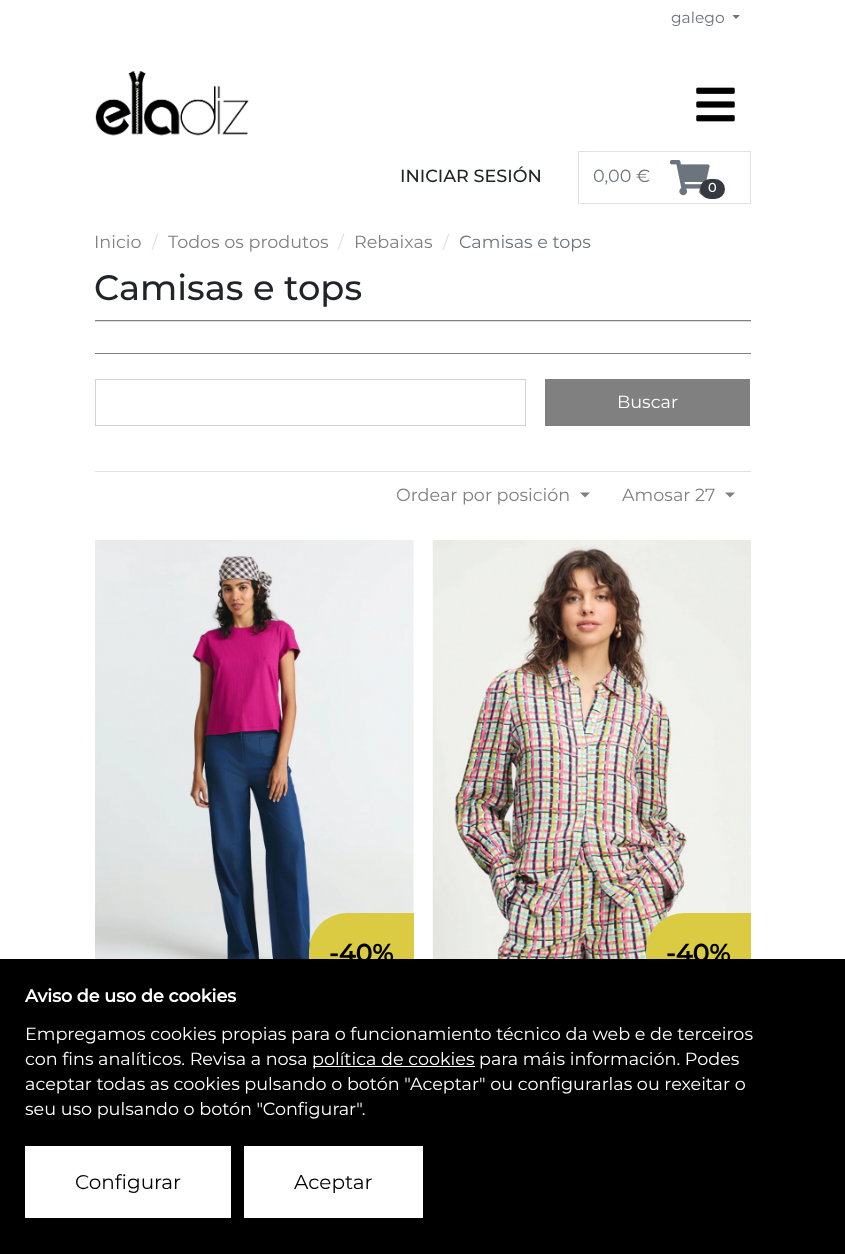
(async () => {
    const canvas = document.querySelector("canvas");
    canvas.width = 845;
    canvas.height = 1254;
    const context = canvas.getContext("2d");
    context.miterLimit = 4;
    context.fontKerning = "normal";
    function write(s, x, y, font, color) {
        context.font = font;
        context.fillStyle = color;
        context.fillText(s, x, y);
    }
    function block(x, y, w, h, color) {
        context.fillStyle = color;
        context.fillRect(x, y, w, h);
    }
    function card(x, y, w, h, r, color) {
        context.fillStyle = color;
        context.beginPath();
        context.roundRect(x, y, w, h, r);
        context.fill();
    }
    async function photo(src, x, y, w, h) {
        const img = new Image();
        img.src = src;
        await img.decode();
        context.drawImage(img, x, y, w, h);
    }

    block(0, 0, 845, 1254, "rgb(255, 255, 255)");
    write("galego", 671, 23, "15.5px Montserrat", "rgb(108, 117, 125)");
    context.beginPath();
    context.moveTo(732.5, 15);
    context.lineTo(740, 15);
    context.lineTo(736, 19);
    context.closePath();
    context.fill();
    await photo("media/1.png", 95, 70, 154, 66);
    await photo("media/2.png", 696, 87, 39, 35);
    write("INICIAR SESIÓN", 400, 182, "500 17.6px Montserrat", "rgb(33, 37, 41)");
    context.strokeStyle = "rgb(222, 226, 230)";
    context.strokeRect(578.5, 151.5, 172, 52);
    write("0,00 €", 593, 182, "17.6px Montserrat", "rgb(108, 117, 125)");
    await photo("media/3.png", 670, 160, 40, 36);
    card(700, 179, 25, 20, 10, "rgb(52, 58, 64)");
    write("0", 708, 192, "500 13px Montserrat", "rgb(255, 255, 255)");
    write("Inicio", 94, 248, "17.6px Montserrat", "rgb(128, 128, 128)");
    write("/", 152, 248, "17.6px Montserrat", "rgb(222, 226, 230)");
    write("Todos os produtos", 168, 248, "17.6px Montserrat", "rgb(128, 128, 128)");
    write("/", 338, 248, "17.6px Montserrat", "rgb(222, 226, 230)");
    write("Rebaixas", 354, 248, "17.6px Montserrat", "rgb(128, 128, 128)");
    write("/", 443, 248, "17.6px Montserrat", "rgb(222, 226, 230)");
    write("Camisas e tops", 459, 248, "17.6px Montserrat", "rgb(108, 117, 125)");
    write("Camisas e tops", 94, 300, "500 35.25px Montserrat", "rgb(33, 37, 41)");
    block(95, 320, 656, 1, "rgb(128, 128, 128)");
    block(95, 321, 656, 1, "rgb(223, 223, 223)");
    block(95, 353, 656, 1, "rgb(128, 128, 128)");
    block(95, 471, 656, 1, "rgb(223, 223, 223)");
    context.strokeStyle = "rgb(206, 212, 218)";
    context.strokeRect(95.5, 379.5, 430, 46);
    block(545, 379, 205, 47, "rgb(128, 128, 128)");
    write("Buscar", 617, 408, "17.6px Montserrat", "rgb(255, 255, 255)");
    write("Ordear por posición", 396, 501, "17.6px Montserrat", "rgb(128, 128, 128)");
    context.beginPath();
    context.moveTo(580, 492.5);
    context.lineTo(590, 492.5);
    context.lineTo(585, 497.5);
    context.closePath();
    context.fill();
    write("Amosar 27", 622, 501, "17.6px Montserrat", "rgb(128, 128, 128)");
    context.beginPath();
    context.moveTo(725, 492.5);
    context.lineTo(735, 492.5);
    context.lineTo(730, 497.5);
    context.closePath();
    context.fill();
    await photo("media/4.png", 95, 540, 319, 419);
    context.fillStyle = "rgb(219, 203, 66)";
    context.beginPath();
    context.roundRect(309, 913, 105, 82, [38, 0, 38, 0]);
    context.fill();
    write("-40%", 329, 962, "bold 25px Montserrat", "rgb(0, 0, 0)");
    await photo("media/5.png", 432, 540, 319, 419);
    context.fillStyle = "rgb(219, 203, 66)";
    context.beginPath();
    context.roundRect(646, 913, 105, 82, [38, 0, 38, 0]);
    context.fill();
    write("-40%", 666, 962, "bold 25px Montserrat", "rgb(0, 0, 0)");
    block(0, 959, 845, 295, "rgb(0, 0, 0)");
    write("Aviso de uso de cookies", 25, 1002, "bold 17.6px Montserrat", "rgb(255, 255, 255)");
    write("Empregamos cookies propias para o funcionamiento técnico da web e de terceiros", 25, 1040, "17.6px Montserrat", "rgb(255, 255, 255)");
    write("con fins analíticos. Revisa a nosa", 25, 1065, "17.6px Montserrat", "rgb(255, 255, 255)");
    block(313, 1066, 162, 1, "rgb(255, 255, 255)");
    write("política de cookies para máis información. Podes", 312, 1065, "17.6px Montserrat", "rgb(255, 255, 255)");
    write("aceptar todas as cookies pulsando o botón \"Aceptar\" ou configurarlas ou rexeitar o", 25, 1090, "17.6px Montserrat", "rgb(255, 255, 255)");
    write("seu uso pulsando o botón \"Configurar\".", 25, 1115, "17.6px Montserrat", "rgb(255, 255, 255)");
    block(25, 1146, 206, 72, "rgb(255, 255, 255)");
    write("Configurar", 75, 1189, "20px Montserrat", "rgb(0, 0, 0)");
    block(244, 1146, 179, 72, "rgb(255, 255, 255)");
    write("Aceptar", 294, 1189, "20px Montserrat", "rgb(0, 0, 0)");
})();
